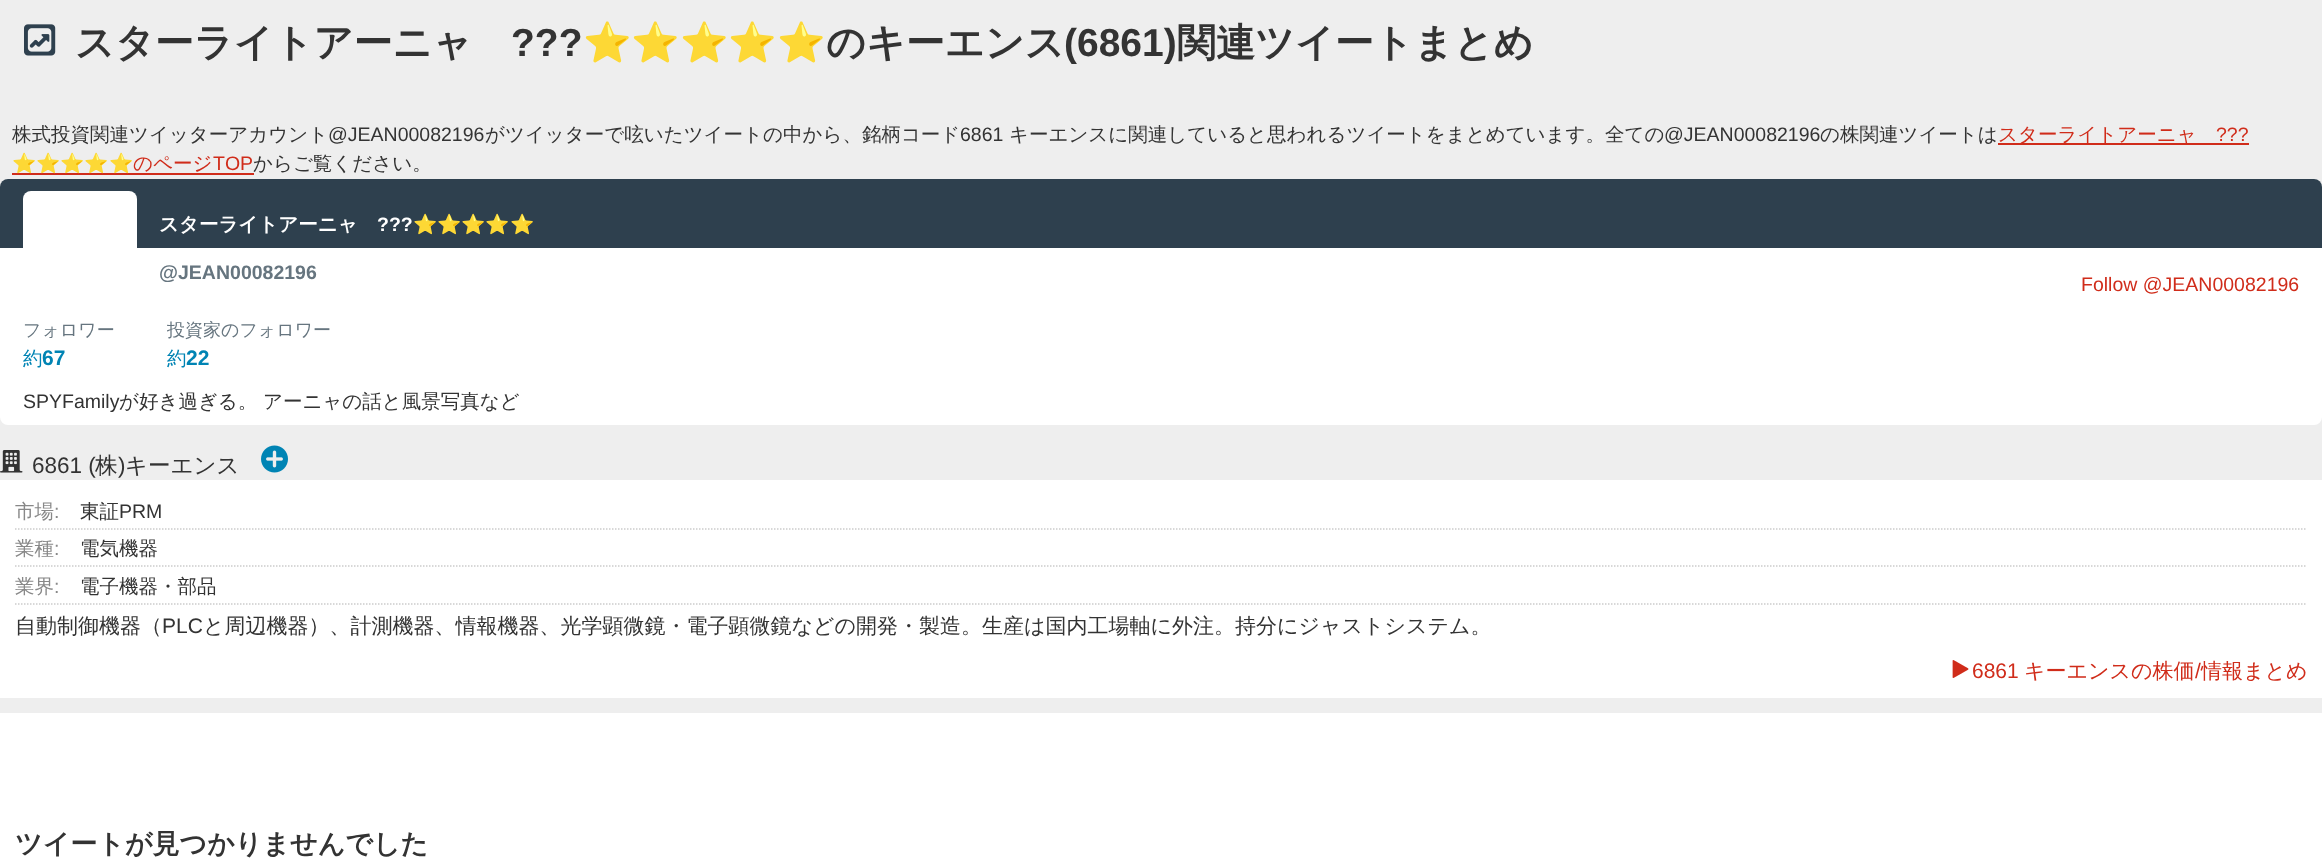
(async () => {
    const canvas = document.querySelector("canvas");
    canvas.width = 2322;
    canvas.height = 868;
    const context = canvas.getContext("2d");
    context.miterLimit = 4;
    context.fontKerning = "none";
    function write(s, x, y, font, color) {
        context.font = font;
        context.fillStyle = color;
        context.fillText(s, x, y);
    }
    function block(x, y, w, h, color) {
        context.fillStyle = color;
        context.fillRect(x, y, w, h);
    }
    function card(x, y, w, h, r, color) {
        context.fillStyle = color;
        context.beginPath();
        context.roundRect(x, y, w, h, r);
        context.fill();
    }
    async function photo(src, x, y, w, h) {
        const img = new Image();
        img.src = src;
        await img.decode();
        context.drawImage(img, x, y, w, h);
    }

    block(0, 0, 2322, 868, "rgb(238, 238, 238)");
    await photo("media/1.png", 24, 24, 32, 32);
    write("スターライトアーニャ", 75, 56, "bold 39px WenQuanYi Zen Hei", "rgb(51, 51, 51)");
    write("???", 511, 56, "bold 39px Liberation Sans", "rgb(51, 51, 51)");
    write("⭐⭐⭐⭐⭐", 583, 56, "bold 39px Noto Color Emoji", "rgb(51, 51, 51)");
    write("のキーエンス", 826, 56, "bold 39px WenQuanYi Zen Hei", "rgb(51, 51, 51)");
    write("(6861)", 1064, 56, "bold 39px Liberation Sans", "rgb(51, 51, 51)");
    write("関連ツイートまとめ", 1177, 56, "bold 39px WenQuanYi Zen Hei", "rgb(51, 51, 51)");
    write("株式投資関連ツイッターアカウント", 12, 141, "500 19.5px WenQuanYi Zen Hei", "rgb(51, 51, 51)");
    write("@JEAN00082196", 328, 141, "19.5px Liberation Sans", "rgb(51, 51, 51)");
    write("がツイッターで呟いたツイートの中から、銘柄コード", 485, 141, "500 19.5px WenQuanYi Zen Hei", "rgb(51, 51, 51)");
    write("6861", 960, 141, "19.5px Liberation Sans", "rgb(51, 51, 51)");
    write("キーエンスに関連していると思われるツイートをまとめています。全ての", 1009, 141, "500 19.5px WenQuanYi Zen Hei", "rgb(51, 51, 51)");
    write("@JEAN00082196", 1664, 141, "19.5px Liberation Sans", "rgb(51, 51, 51)");
    write("の株関連ツイートは", 1820, 141, "500 19.5px WenQuanYi Zen Hei", "rgb(51, 51, 51)");
    block(1998, 143, 251, 2, "rgb(208, 44, 26)");
    write("スターライトアーニャ", 1998, 141, "500 19.5px WenQuanYi Zen Hei", "rgb(208, 44, 26)");
    write("???", 2216, 141, "19.5px Liberation Sans", "rgb(208, 44, 26)");
    block(12, 173, 242, 2, "rgb(208, 44, 26)");
    write("⭐⭐⭐⭐⭐", 12, 170, "19.5px Noto Color Emoji", "rgb(208, 44, 26)");
    write("のページ", 133, 170, "500 19.5px WenQuanYi Zen Hei", "rgb(208, 44, 26)");
    write("TOP", 213, 170, "19.5px Liberation Sans", "rgb(208, 44, 26)");
    write("からご覧ください。", 253, 170, "500 19.5px WenQuanYi Zen Hei", "rgb(51, 51, 51)");
    card(0, 179, 2322, 246, 8, "rgb(255, 255, 255)");
    context.fillStyle = "rgb(46, 64, 78)";
    context.beginPath();
    context.roundRect(0, 179, 2322, 69, [8, 8, 0, 0]);
    context.fill();
    card(23, 191, 114, 114, 8, "rgb(255, 255, 255)");
    write("スターライトアーニャ", 159, 231, "bold 19.5px WenQuanYi Zen Hei", "rgb(255, 255, 255)");
    write("???", 377, 231, "bold 19.5px Liberation Sans", "rgb(255, 255, 255)");
    write("⭐⭐⭐⭐⭐", 413, 231, "bold 19.5px Noto Color Emoji", "rgb(255, 255, 255)");
    write("@JEAN00082196", 159, 279, "bold 19.5px Liberation Sans", "rgb(102, 117, 127)");
    write("Follow @JEAN00082196", 2081, 291, "19.5px Liberation Sans", "rgb(208, 44, 26)");
    write("フォロワー", 23, 336, "500 18px WenQuanYi Zen Hei", "rgb(102, 117, 127)");
    write("約", 23, 365, "500 19.5px WenQuanYi Zen Hei", "rgb(0, 132, 180)");
    write("67", 42, 365, "bold 21px Liberation Sans", "rgb(0, 132, 180)");
    write("投資家のフォロワー", 167, 336, "500 18px WenQuanYi Zen Hei", "rgb(102, 117, 127)");
    write("約", 167, 365, "500 19.5px WenQuanYi Zen Hei", "rgb(0, 132, 180)");
    write("22", 186, 365, "bold 21px Liberation Sans", "rgb(0, 132, 180)");
    write("SPYFamily", 23, 408, "19.5px Liberation Sans", "rgb(51, 51, 51)");
    write("が好き過ぎる。", 119, 408, "500 19.5px WenQuanYi Zen Hei", "rgb(51, 51, 51)");
    write("アーニャの話と風景写真など", 263, 408, "500 19.5px WenQuanYi Zen Hei", "rgb(51, 51, 51)");
    await photo("media/2.png", 0, 450, 23, 23);
    write("6861 (", 32, 473, "22.5px Liberation Sans", "rgb(51, 51, 51)");
    write("株", 95, 473, "500 22.5px WenQuanYi Zen Hei", "rgb(51, 51, 51)");
    write(")", 118, 473, "22.5px Liberation Sans", "rgb(51, 51, 51)");
    write("キーエンス", 125, 473, "500 22.5px WenQuanYi Zen Hei", "rgb(51, 51, 51)");
    await photo("media/3.png", 261, 445, 27, 28);
    block(0, 480, 2322, 218, "rgb(255, 255, 255)");
    context.beginPath();
    context.moveTo(15, 529);
    context.lineTo(2307, 529);
    context.strokeStyle = "rgb(204, 204, 204)";
    context.lineWidth = 1.5;
    context.setLineDash([1.5, 1.5]);
    context.stroke();
    write("市場", 15, 518, "500 19.5px WenQuanYi Zen Hei", "rgb(136, 136, 136)");
    write(":", 54, 518, "19.5px Liberation Sans", "rgb(136, 136, 136)");
    write("東証", 80, 518, "500 19.5px WenQuanYi Zen Hei", "rgb(51, 51, 51)");
    write("PRM", 119, 518, "19.5px Liberation Sans", "rgb(51, 51, 51)");
    context.beginPath();
    context.moveTo(15, 566);
    context.lineTo(2307, 566);
    context.stroke();
    write("業種", 15, 555, "500 19.5px WenQuanYi Zen Hei", "rgb(136, 136, 136)");
    write(":", 54, 555, "19.5px Liberation Sans", "rgb(136, 136, 136)");
    write("電気機器", 80, 555, "500 19.5px WenQuanYi Zen Hei", "rgb(51, 51, 51)");
    context.beginPath();
    context.moveTo(15, 604);
    context.lineTo(2307, 604);
    context.stroke();
    write("業界", 15, 593, "500 19.5px WenQuanYi Zen Hei", "rgb(136, 136, 136)");
    write(":", 54, 593, "19.5px Liberation Sans", "rgb(136, 136, 136)");
    write("電子機器・部品", 80, 593, "500 19.5px WenQuanYi Zen Hei", "rgb(51, 51, 51)");
    write("自動制御機器（", 15, 633, "500 21px WenQuanYi Zen Hei", "rgb(51, 51, 51)");
    write("PLC", 162, 633, "21px Liberation Sans", "rgb(51, 51, 51)");
    write("と周辺機器）、計測機器、情報機器、光学顕微鏡・電子顕微鏡などの開発・製造。生産は国内工場軸に外注。持分にジャストシステム。", 203, 633, "500 21px WenQuanYi Zen Hei", "rgb(51, 51, 51)");
    await photo("media/4.png", 1952, 660, 17, 18);
    write("6861", 1972, 678, "21px Liberation Sans", "rgb(208, 44, 26)");
    write("キーエンスの株価", 2024, 678, "500 21px WenQuanYi Zen Hei", "rgb(208, 44, 26)");
    write("/", 2195, 678, "21px Liberation Sans", "rgb(208, 44, 26)");
    write("情報まとめ", 2201, 678, "500 21px WenQuanYi Zen Hei", "rgb(208, 44, 26)");
    block(0, 713, 2322, 155, "rgb(255, 255, 255)");
    write("ツイートが見つかりませんでした", 15, 853, "bold 27px WenQuanYi Zen Hei", "rgb(51, 51, 51)");
})();
